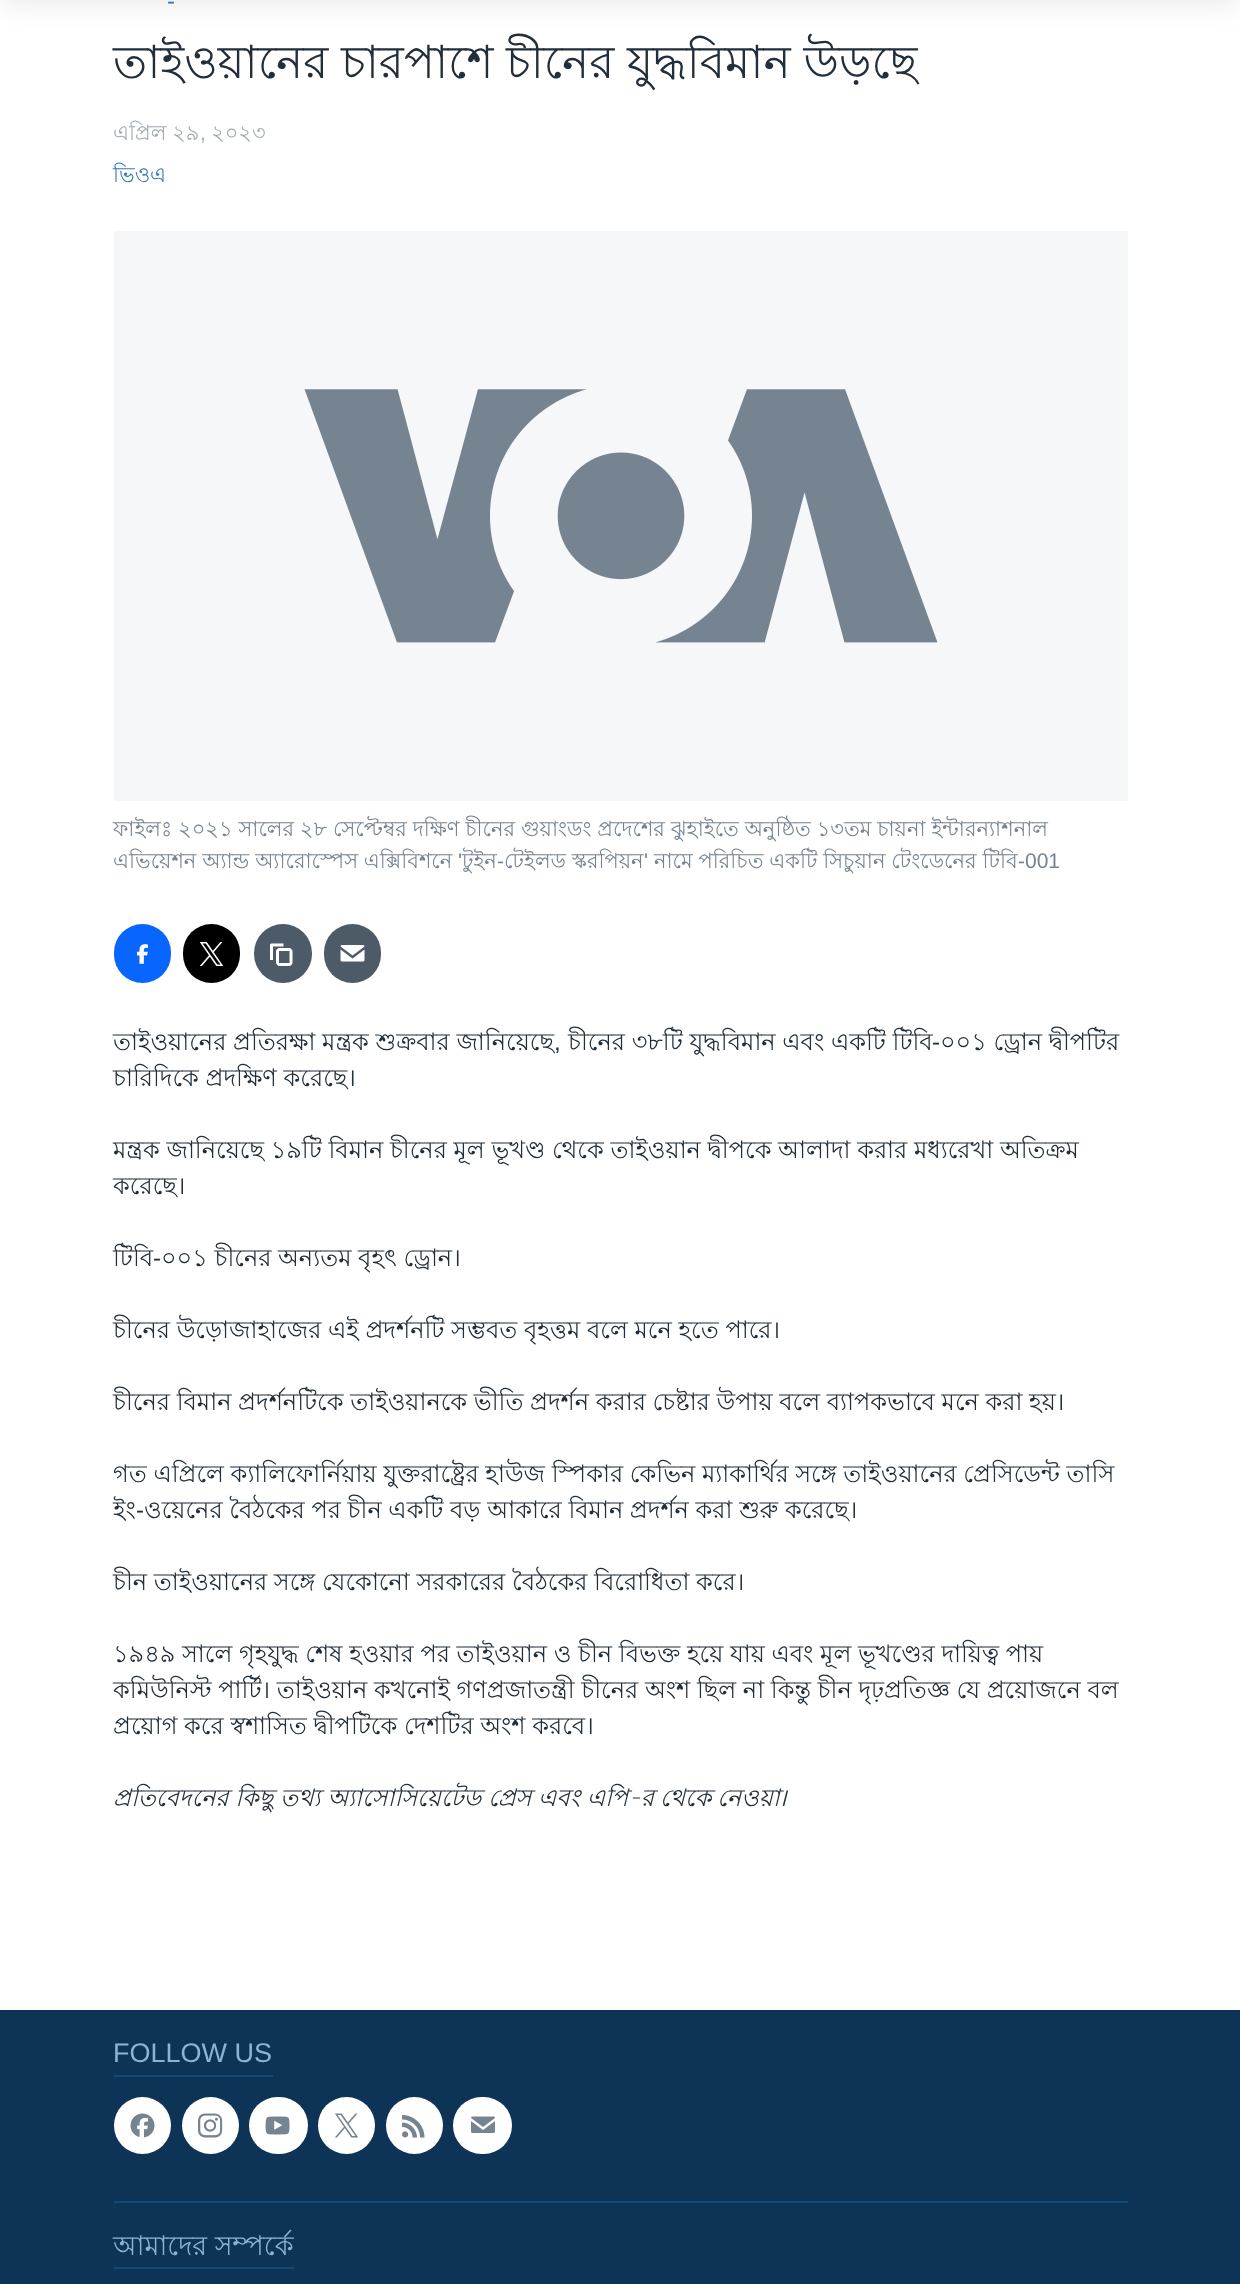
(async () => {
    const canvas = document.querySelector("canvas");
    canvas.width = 1240;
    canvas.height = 2284;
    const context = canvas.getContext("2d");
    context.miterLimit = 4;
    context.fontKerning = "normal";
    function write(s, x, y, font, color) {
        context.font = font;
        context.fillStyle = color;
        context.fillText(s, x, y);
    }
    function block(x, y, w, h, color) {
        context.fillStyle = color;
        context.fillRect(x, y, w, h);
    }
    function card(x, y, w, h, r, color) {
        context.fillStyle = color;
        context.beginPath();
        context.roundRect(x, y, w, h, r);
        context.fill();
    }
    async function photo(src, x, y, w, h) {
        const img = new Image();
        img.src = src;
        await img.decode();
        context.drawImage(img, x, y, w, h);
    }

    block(0, 0, 1240, 2284, "rgb(255, 255, 255)");
    context.fillStyle = "rgba(0, 0, 0, 0.1)";
    context.filter = "blur(15px)";
    context.beginPath();
    context.rect(0, -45, 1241, 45);
    context.fill();
    context.filter = "none";
    write("-", 167, 9, "24px Liberation Sans", "rgb(58, 121, 183)");
    write("তাইওয়ানের চারপাশে চীনের যুদ্ধবিমান উড়ছে", 113, 78, "45.6px Lohit Bengali", "rgb(34, 47, 58)");
    write("এপ্রিল ২৯", 113, 140, "21px Lohit Bengali", "rgb(161, 170, 180)");
    write(",", 200, 140, "21px Liberation Sans", "rgb(161, 170, 180)");
    write("২০২৩", 211, 140, "21px Lohit Bengali", "rgb(161, 170, 180)");
    write("ভিওএ", 113, 182, "21px Lohit Bengali", "rgb(58, 121, 183)");
    block(114, 231, 1014, 570, "rgb(246, 247, 248)");
    await photo("media/1.png", 304, 389, 634, 254);
    write("ফাইলঃ ২০২১ সালের ২৮ সেপ্টেম্বর দক্ষিণ চীনের গুয়াংডং প্রদেশের ঝুহাইতে অনুষ্ঠিত ১৩তম চায়না ইন্টারন্যাশনাল", 113, 836, "21px Lohit Bengali", "rgb(118, 132, 146)");
    write("এভিয়েশন অ্যান্ড অ্যারোস্পেস এক্সিবিশনে", 113, 868, "21px Lohit Bengali", "rgb(118, 132, 146)");
    write("'", 458, 868, "21px Liberation Sans", "rgb(118, 132, 146)");
    write("টুইন", 462, 868, "21px Lohit Bengali", "rgb(118, 132, 146)");
    write("টেইলড স্করপিয়ন", 504, 868, "21px Lohit Bengali", "rgb(118, 132, 146)");
    write("নামে পরিচিত একটি সিচুয়ান টেংডেনের টিবি", 654, 868, "21px Lohit Bengali", "rgb(118, 132, 146)");
    write("-", 497, 868, "21px Liberation Sans", "rgb(118, 132, 146)");
    write("'", 644, 868, "21px Liberation Sans", "rgb(118, 132, 146)");
    write("-001", 1018, 868, "21px Liberation Sans", "rgb(118, 132, 146)");
    card(114, 924, 57, 59, 28.5, "rgb(8, 102, 255)");
    await photo("media/2.png", 137, 944, 11, 20);
    card(183, 924, 57, 59, 28.5, "rgb(0, 0, 0)");
    await photo("media/3.png", 199, 942, 25, 24);
    card(254, 924, 58, 59, 29, "rgb(77, 90, 103)");
    await photo("media/4.png", 270, 943, 23, 23);
    card(324, 924, 57, 59, 28.5, "rgb(77, 90, 103)");
    await photo("media/5.png", 340, 945, 25, 17);
    write("তাইওয়ানের প্রতিরক্ষা মন্ত্রক শুক্রবার জানিয়েছে", 113, 1050, "24px Lohit Bengali", "rgb(34, 47, 58)");
    write(",", 554, 1050, "24px Liberation Sans", "rgb(34, 47, 58)");
    write("চীনের ৩৮টি যুদ্ধবিমান এবং একটি টিবি", 568, 1050, "24px Lohit Bengali", "rgb(34, 47, 58)");
    write("-", 932, 1050, "24px Liberation Sans", "rgb(34, 47, 58)");
    write("০০১ ড্রোন দ্বীপটির", 940, 1050, "24px Lohit Bengali", "rgb(34, 47, 58)");
    write("চারিদিকে প্রদক্ষিণ করেছে।", 113, 1086, "24px Lohit Bengali", "rgb(34, 47, 58)");
    write("মন্ত্রক জানিয়েছে ১৯টি বিমান চীনের মূল ভূখণ্ড থেকে তাইওয়ান দ্বীপকে আলাদা করার মধ্যরেখা অতিক্রম", 113, 1158, "24px Lohit Bengali", "rgb(34, 47, 58)");
    write("করেছে।", 113, 1194, "24px Lohit Bengali", "rgb(34, 47, 58)");
    write("টিবি", 113, 1266, "24px Lohit Bengali", "rgb(34, 47, 58)");
    write("-", 153, 1266, "24px Liberation Sans", "rgb(34, 47, 58)");
    write("০০১ চীনের অন্যতম বৃহৎ ড্রোন।", 161, 1266, "24px Lohit Bengali", "rgb(34, 47, 58)");
    write("চীনের উড়োজাহাজের এই প্রদর্শনটি সম্ভবত বৃহত্তম বলে মনে হতে পারে।", 113, 1338, "24px Lohit Bengali", "rgb(34, 47, 58)");
    write("চীনের বিমান প্রদর্শনটিকে তাইওয়ানকে ভীতি প্রদর্শন করার চেষ্টার উপায় বলে ব্যাপকভাবে মনে করা হয়।", 113, 1410, "24px Lohit Bengali", "rgb(34, 47, 58)");
    write("গত এপ্রিলে ক্যালিফোর্নিয়ায় যুক্তরাষ্ট্রের হাউজ স্পিকার কেভিন ম্যাকার্থির সঙ্গে তাইওয়ানের প্রেসিডেন্ট তাসি", 113, 1482, "24px Lohit Bengali", "rgb(34, 47, 58)");
    write("ইং", 113, 1518, "24px Lohit Bengali", "rgb(34, 47, 58)");
    write("-", 136, 1518, "24px Liberation Sans", "rgb(34, 47, 58)");
    write("ওয়েনের বৈঠকের পর চীন একটি বড় আকারে বিমান প্রদর্শন করা শুরু করেছে।", 144, 1518, "24px Lohit Bengali", "rgb(34, 47, 58)");
    write("চীন তাইওয়ানের সঙ্গে যেকোনো সরকারের বৈঠকের বিরোধিতা করে।", 113, 1590, "24px Lohit Bengali", "rgb(34, 47, 58)");
    write("১৯৪৯ সালে গৃহযুদ্ধ শেষ হওয়ার পর তাইওয়ান ও চীন বিভক্ত হয়ে যায় এবং মূল ভূখণ্ডের দায়িত্ব পায়", 113, 1662, "24px Lohit Bengali", "rgb(34, 47, 58)");
    write("কমিউনিস্ট পার্টি। তাইওয়ান কখনোই গণপ্রজাতন্ত্রী চীনের অংশ ছিল না কিন্তু চীন দৃঢ়প্রতিজ্ঞ যে প্রয়োজনে বল", 113, 1698, "24px Lohit Bengali", "rgb(34, 47, 58)");
    write("প্রয়োগ করে স্বশাসিত দ্বীপটিকে দেশটির অংশ করবে।", 113, 1734, "24px Lohit Bengali", "rgb(34, 47, 58)");
    write("প্রতিবেদনের কিছু তথ্য অ্যাসোসিয়েটেড প্রেস এবং এপি", 113, 1806, "italic 24px Lohit Bengali", "rgb(34, 47, 58)");
    context.wordSpacing = "-1px";
    write("-র থেকে নেওয়া", 628, 1806, "italic 24px Lohit Bengali", "rgb(34, 47, 58)");
    context.wordSpacing = "0px";
    write("।", 778, 1806, "italic 24px Lohit Bengali", "rgb(34, 47, 58)");
    block(0, 2010, 1240, 274, "rgb(13, 52, 86)");
    block(114, 2075, 159, 2, "rgb(19, 73, 118)");
    write("FOLLOW US", 113, 2062, "27px Liberation Sans", "rgb(141, 179, 212)");
    context.fillStyle = "rgb(255, 255, 255)";
    context.beginPath();
    context.arc(142.5, 2125.5, 28.5, 0, Math.PI * 2);
    context.fill();
    await photo("media/6.png", 130, 2113, 25, 25);
    context.beginPath();
    context.arc(210.5, 2125.5, 28.5, 0, Math.PI * 2);
    context.fill();
    await photo("media/7.png", 198, 2113, 25, 25);
    card(249, 2097, 59, 57, 28.5, "rgb(255, 255, 255)");
    await photo("media/8.png", 265, 2116, 25, 19);
    context.beginPath();
    context.arc(346.5, 2125.5, 28.5, 0, Math.PI * 2);
    context.fill();
    await photo("media/9.png", 334, 2113, 25, 25);
    context.beginPath();
    context.arc(414.5, 2125.5, 28.5, 0, Math.PI * 2);
    context.fill();
    await photo("media/10.png", 402, 2115, 23, 23);
    card(453, 2097, 59, 57, 28.5, "rgb(255, 255, 255)");
    await photo("media/11.png", 471, 2116, 24, 17);
    block(114, 2201, 1014, 2, "rgb(19, 73, 118)");
    block(114, 2267, 180, 2, "rgb(19, 73, 118)");
    write("আমাদের সম্পর্কে", 113, 2255, "27px Lohit Bengali", "rgb(141, 179, 212)");
})();
